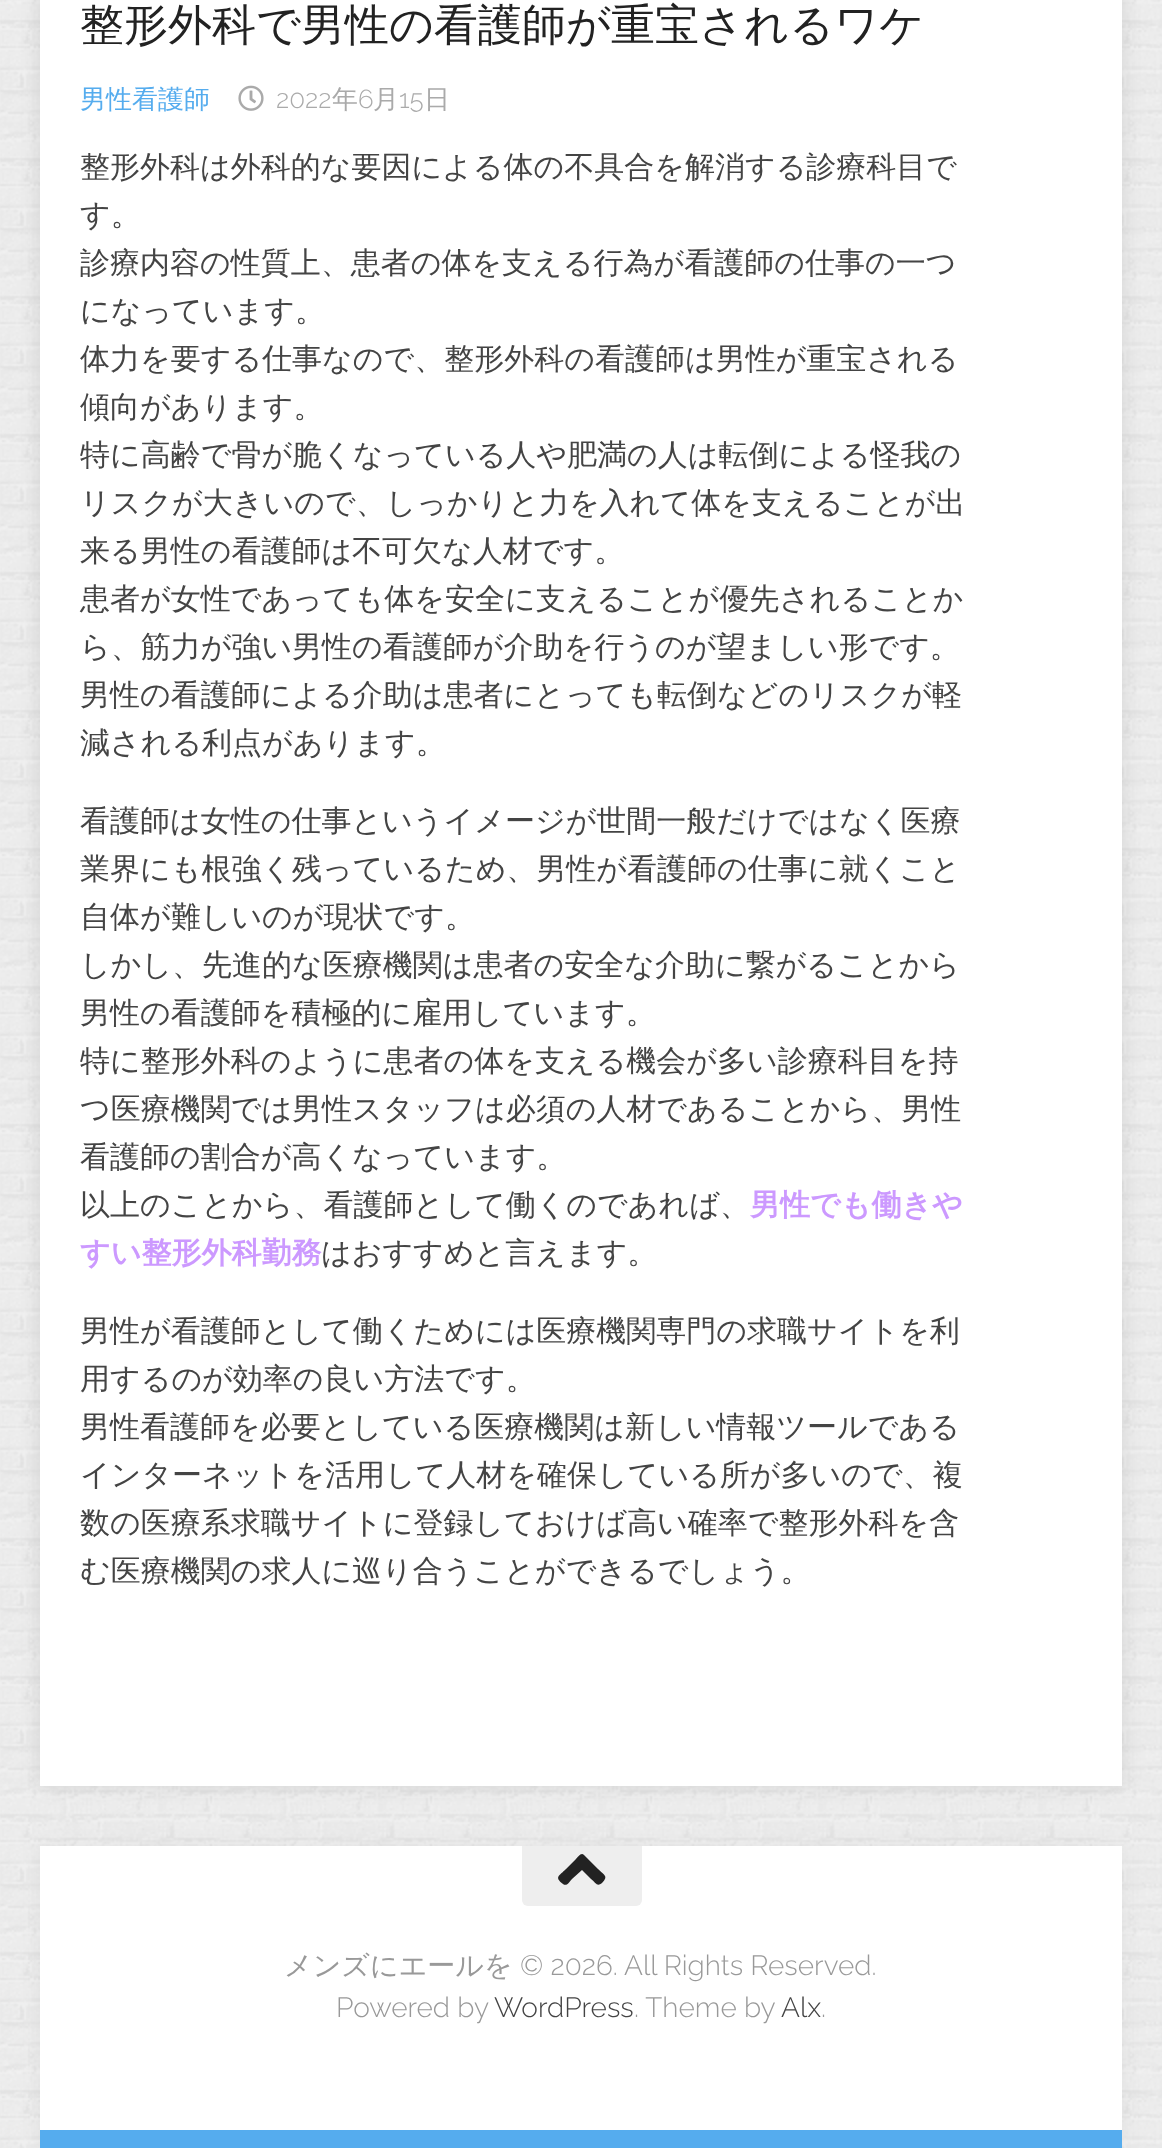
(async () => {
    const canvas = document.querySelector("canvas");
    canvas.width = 1162;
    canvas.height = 2148;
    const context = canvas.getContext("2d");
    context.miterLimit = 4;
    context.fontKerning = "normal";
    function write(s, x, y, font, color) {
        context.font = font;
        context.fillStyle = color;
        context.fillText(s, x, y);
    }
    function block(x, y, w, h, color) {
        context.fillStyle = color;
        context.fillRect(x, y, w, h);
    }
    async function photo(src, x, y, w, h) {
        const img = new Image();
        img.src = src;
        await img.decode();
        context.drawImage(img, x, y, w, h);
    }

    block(0, 0, 1162, 2148, "rgb(255, 255, 255)");
    await photo("media/1.png", 0, 0, 1162, 2148);
    context.fillStyle = "rgba(0, 0, 0, 0.1)";
    context.filter = "blur(10px)";
    context.beginPath();
    context.rect(40, -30, 1082, 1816);
    context.fill();
    context.filter = "none";
    block(40, 0, 1082, 1786, "rgb(255, 255, 255)");
    write("整形外科で男性の看護師が重宝されるワケ", 80, 40, "500 44px WenQuanYi Zen Hei", "rgb(34, 34, 34)");
    write("男性看護師", 80, 108, "500 26px WenQuanYi Zen Hei", "rgb(85, 172, 238)");
    await photo("media/2.png", 238, 85, 26, 26);
    write("2022", 276, 108, "300 26px Raleway", "rgb(170, 170, 170)");
    write("年", 332, 108, "500 26px WenQuanYi Zen Hei", "rgb(170, 170, 170)");
    write("6", 358, 108, "300 26px Raleway", "rgb(170, 170, 170)");
    write("月", 373, 108, "500 26px WenQuanYi Zen Hei", "rgb(170, 170, 170)");
    write("15", 399, 108, "300 26px Raleway", "rgb(170, 170, 170)");
    write("日", 424, 108, "500 26px WenQuanYi Zen Hei", "rgb(170, 170, 170)");
    write("整形外科は外科的な要因による体の不具合を解消する診療科目で", 80, 177, "500 30px WenQuanYi Zen Hei", "rgb(68, 68, 68)");
    write("す。", 80, 225, "500 30px WenQuanYi Zen Hei", "rgb(68, 68, 68)");
    write("診療内容の性質上、患者の体を支える行為が看護師の仕事の一つ", 80, 273, "500 30px WenQuanYi Zen Hei", "rgb(68, 68, 68)");
    write("になっています。", 80, 321, "500 30px WenQuanYi Zen Hei", "rgb(68, 68, 68)");
    write("体力を要する仕事なので、整形外科の看護師は男性が重宝される", 80, 369, "500 30px WenQuanYi Zen Hei", "rgb(68, 68, 68)");
    write("傾向があります。", 80, 417, "500 30px WenQuanYi Zen Hei", "rgb(68, 68, 68)");
    write("特に高齢で骨が脆くなっている人や肥満の人は転倒による怪我の", 80, 465, "500 30px WenQuanYi Zen Hei", "rgb(68, 68, 68)");
    write("リスクが大きいので、しっかりと力を入れて体を支えることが出", 80, 513, "500 30px WenQuanYi Zen Hei", "rgb(68, 68, 68)");
    write("来る男性の看護師は不可欠な人材です。", 80, 561, "500 30px WenQuanYi Zen Hei", "rgb(68, 68, 68)");
    write("患者が女性であっても体を安全に支えることが優先されることか", 80, 609, "500 30px WenQuanYi Zen Hei", "rgb(68, 68, 68)");
    write("ら、筋力が強い男性の看護師が介助を行うのが望ましい形です。", 80, 657, "500 30px WenQuanYi Zen Hei", "rgb(68, 68, 68)");
    write("男性の看護師による介助は患者にとっても転倒などのリスクが軽", 80, 705, "500 30px WenQuanYi Zen Hei", "rgb(68, 68, 68)");
    write("減される利点があります。", 80, 753, "500 30px WenQuanYi Zen Hei", "rgb(68, 68, 68)");
    write("看護師は女性の仕事というイメージが世間一般だけではなく医療", 80, 831, "500 30px WenQuanYi Zen Hei", "rgb(68, 68, 68)");
    write("業界にも根強く残っているため、男性が看護師の仕事に就くこと", 80, 879, "500 30px WenQuanYi Zen Hei", "rgb(68, 68, 68)");
    write("自体が難しいのが現状です。", 80, 927, "500 30px WenQuanYi Zen Hei", "rgb(68, 68, 68)");
    write("しかし、先進的な医療機関は患者の安全な介助に繋がることから", 80, 975, "500 30px WenQuanYi Zen Hei", "rgb(68, 68, 68)");
    write("男性の看護師を積極的に雇用しています。", 80, 1023, "500 30px WenQuanYi Zen Hei", "rgb(68, 68, 68)");
    write("特に整形外科のように患者の体を支える機会が多い診療科目を持", 80, 1071, "500 30px WenQuanYi Zen Hei", "rgb(68, 68, 68)");
    write("つ医療機関では男性スタッフは必須の人材であることから、男性", 80, 1119, "500 30px WenQuanYi Zen Hei", "rgb(68, 68, 68)");
    write("看護師の割合が高くなっています。", 80, 1167, "500 30px WenQuanYi Zen Hei", "rgb(68, 68, 68)");
    write("以上のことから、看護師として働くのであれば、", 80, 1215, "500 30px WenQuanYi Zen Hei", "rgb(68, 68, 68)");
    write("男性でも働きや", 750, 1215, "bold 30px WenQuanYi Zen Hei", "rgb(204, 153, 255)");
    write("すい整形外科勤務", 80, 1263, "bold 30px WenQuanYi Zen Hei", "rgb(204, 153, 255)");
    write("はおすすめと言えます。", 321, 1263, "500 30px WenQuanYi Zen Hei", "rgb(68, 68, 68)");
    write("男性が看護師として働くためには医療機関専門の求職サイトを利", 80, 1341, "500 30px WenQuanYi Zen Hei", "rgb(68, 68, 68)");
    write("用するのが効率の良い方法です。", 80, 1389, "500 30px WenQuanYi Zen Hei", "rgb(68, 68, 68)");
    write("男性看護師を必要としている医療機関は新しい情報ツールである", 80, 1437, "500 30px WenQuanYi Zen Hei", "rgb(68, 68, 68)");
    write("インターネットを活用して人材を確保している所が多いので、複", 80, 1485, "500 30px WenQuanYi Zen Hei", "rgb(68, 68, 68)");
    write("数の医療系求職サイトに登録しておけば高い確率で整形外科を含", 80, 1533, "500 30px WenQuanYi Zen Hei", "rgb(68, 68, 68)");
    write("む医療機関の求人に巡り合うことができるでしょう。", 80, 1581, "500 30px WenQuanYi Zen Hei", "rgb(68, 68, 68)");
    context.fillStyle = "rgba(0, 0, 0, 0.05)";
    context.filter = "blur(10px)";
    context.beginPath();
    context.rect(40, 1846, 1082, 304);
    context.fill();
    context.filter = "none";
    block(40, 1846, 1082, 284, "rgb(255, 255, 255)");
    block(40, 2130, 1082, 18, "rgb(85, 172, 238)");
    context.fillStyle = "rgb(238, 238, 238)";
    context.beginPath();
    context.roundRect(522, 1846, 120, 60, [0, 0, 6, 6]);
    context.fill();
    context.fillStyle = "rgb(34, 34, 34)";
    context.beginPath();
    context.moveTo(584, 1855);
    context.lineTo(598, 1869);
    context.bezierCurveTo(604, 1875, 609, 1876, 602, 1883);
    context.bezierCurveTo(597, 1887, 596, 1883, 591, 1879);
    context.lineTo(582, 1870);
    context.lineTo(572, 1879);
    context.bezierCurveTo(570, 1881, 567, 1887, 563, 1884);
    context.bezierCurveTo(554, 1877, 559, 1876, 566, 1869);
    context.lineTo(576, 1859);
    context.bezierCurveTo(578, 1857, 581, 1852, 584, 1855);
    context.closePath();
    context.fill();
    write("メンズにエールを", 284, 1975, "500 28px WenQuanYi Zen Hei", "rgb(153, 153, 153)");
    write("© 2026. All Rights Reserved.", 520, 1975, "300 28px Raleway", "rgb(153, 153, 153)");
    write("Powered by", 336, 2017, "300 28px Raleway", "rgb(153, 153, 153)");
    write("WordPress", 494, 2017, "300 28px Raleway", "rgb(68, 68, 68)");
    write(". Theme by", 634, 2017, "300 28px Raleway", "rgb(153, 153, 153)");
    write("Alx", 781, 2017, "300 28px Raleway", "rgb(68, 68, 68)");
    write(".", 821, 2017, "300 28px Raleway", "rgb(153, 153, 153)");
})();
